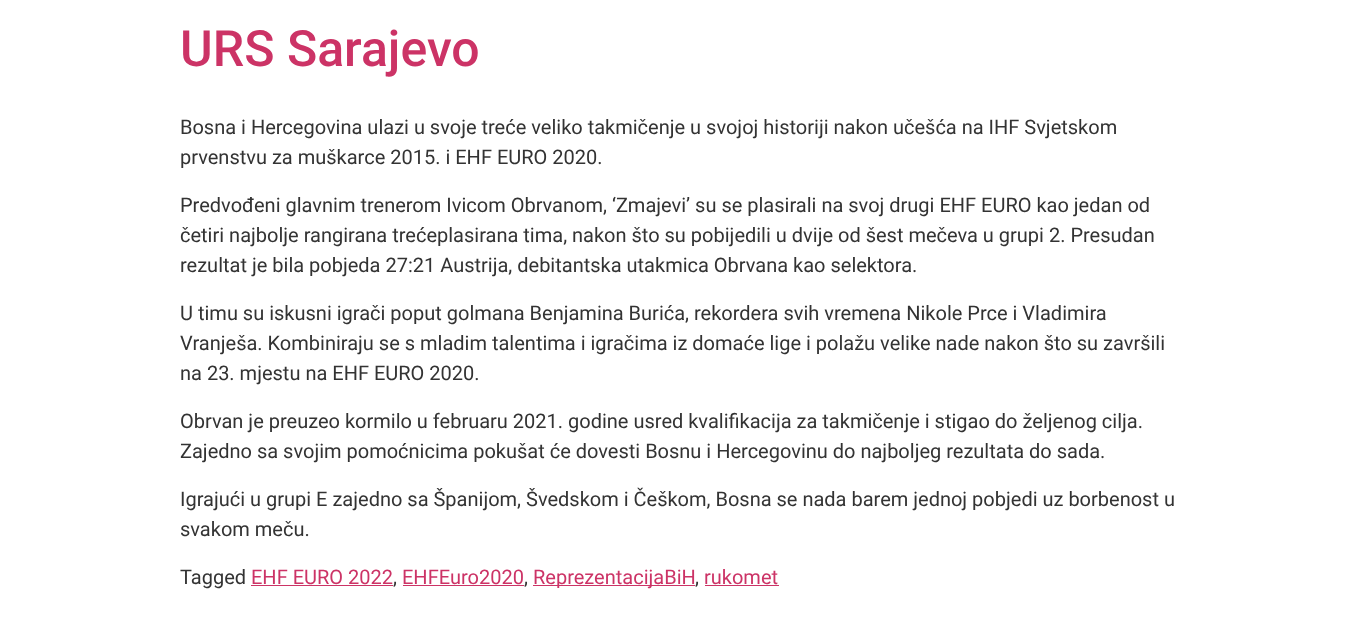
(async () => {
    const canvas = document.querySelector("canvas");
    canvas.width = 1359;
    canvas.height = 625;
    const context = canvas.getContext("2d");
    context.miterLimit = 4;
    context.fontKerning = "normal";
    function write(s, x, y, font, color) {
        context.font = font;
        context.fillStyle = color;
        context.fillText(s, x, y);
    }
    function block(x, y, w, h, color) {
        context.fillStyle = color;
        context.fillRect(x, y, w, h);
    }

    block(0, 0, 1359, 625, "rgb(255, 255, 255)");
    write("URS Sarajevo", 180, 66, "500 50px Roboto", "rgb(204, 51, 102)");
    write("Bosna i Hercegovina ulazi u svoje treće veliko takmičenje u svojoj historiji nakon učešća na IHF Svjetskom", 180, 134, "20px Roboto", "rgb(51, 51, 51)");
    write("prvenstvu za muškarce 2015. i EHF EURO 2020.", 180, 164, "20px Roboto", "rgb(51, 51, 51)");
    write("Predvođeni glavnim trenerom Ivicom Obrvanom, ‘Zmajevi’ su se plasirali na svoj drugi EHF EURO kao jedan od", 180, 212, "20px Roboto", "rgb(51, 51, 51)");
    write("četiri najbolje rangirana trećeplasirana tima, nakon što su pobijedili u dvije od šest mečeva u grupi 2. Presudan", 180, 242, "20px Roboto", "rgb(51, 51, 51)");
    write("rezultat je bila pobjeda 27:21 Austrija, debitantska utakmica Obrvana kao selektora.", 180, 272, "20px Roboto", "rgb(51, 51, 51)");
    write("U timu su iskusni igrači poput golmana Benjamina Burića, rekordera svih vremena Nikole Prce i Vladimira", 180, 320, "20px Roboto", "rgb(51, 51, 51)");
    write("Vranješa. Kombiniraju se s mladim talentima i igračima iz domaće lige i polažu velike nade nakon što su završili", 180, 350, "20px Roboto", "rgb(51, 51, 51)");
    write("na 23. mjestu na EHF EURO 2020.", 180, 380, "20px Roboto", "rgb(51, 51, 51)");
    write("Obrvan je preuzeo kormilo u februaru 2021. godine usred kvalifikacija za takmičenje i stigao do željenog cilja.", 180, 428, "20px Roboto", "rgb(51, 51, 51)");
    write("Zajedno sa svojim pomoćnicima pokušat će dovesti Bosnu i Hercegovinu do najboljeg rezultata do sada.", 180, 458, "20px Roboto", "rgb(51, 51, 51)");
    write("Igrajući u grupi E zajedno sa Španijom, Švedskom i Češkom, Bosna se nada barem jednoj pobjedi uz borbenost u", 180, 506, "20px Roboto", "rgb(51, 51, 51)");
    write("svakom meču.", 180, 536, "20px Roboto", "rgb(51, 51, 51)");
    write("Tagged", 180, 584, "20px Roboto", "rgb(51, 51, 51)");
    write("EHF EURO 2022", 251, 584, "20px Roboto", "rgb(204, 51, 102)");
    write(",", 393, 584, "20px Roboto", "rgb(51, 51, 51)");
    block(251, 585, 142, 1, "rgb(204, 51, 102)");
    write("EHFEuro2020", 402, 584, "20px Roboto", "rgb(204, 51, 102)");
    write(",", 524, 584, "20px Roboto", "rgb(51, 51, 51)");
    block(403, 585, 121, 1, "rgb(204, 51, 102)");
    block(533, 585, 162, 1, "rgb(204, 51, 102)");
    write("ReprezentacijaBiH", 533, 584, "20px Roboto", "rgb(204, 51, 102)");
    write(",", 695, 584, "20px Roboto", "rgb(51, 51, 51)");
    block(705, 585, 74, 1, "rgb(204, 51, 102)");
    write("rukomet", 704, 584, "20px Roboto", "rgb(204, 51, 102)");
})();
